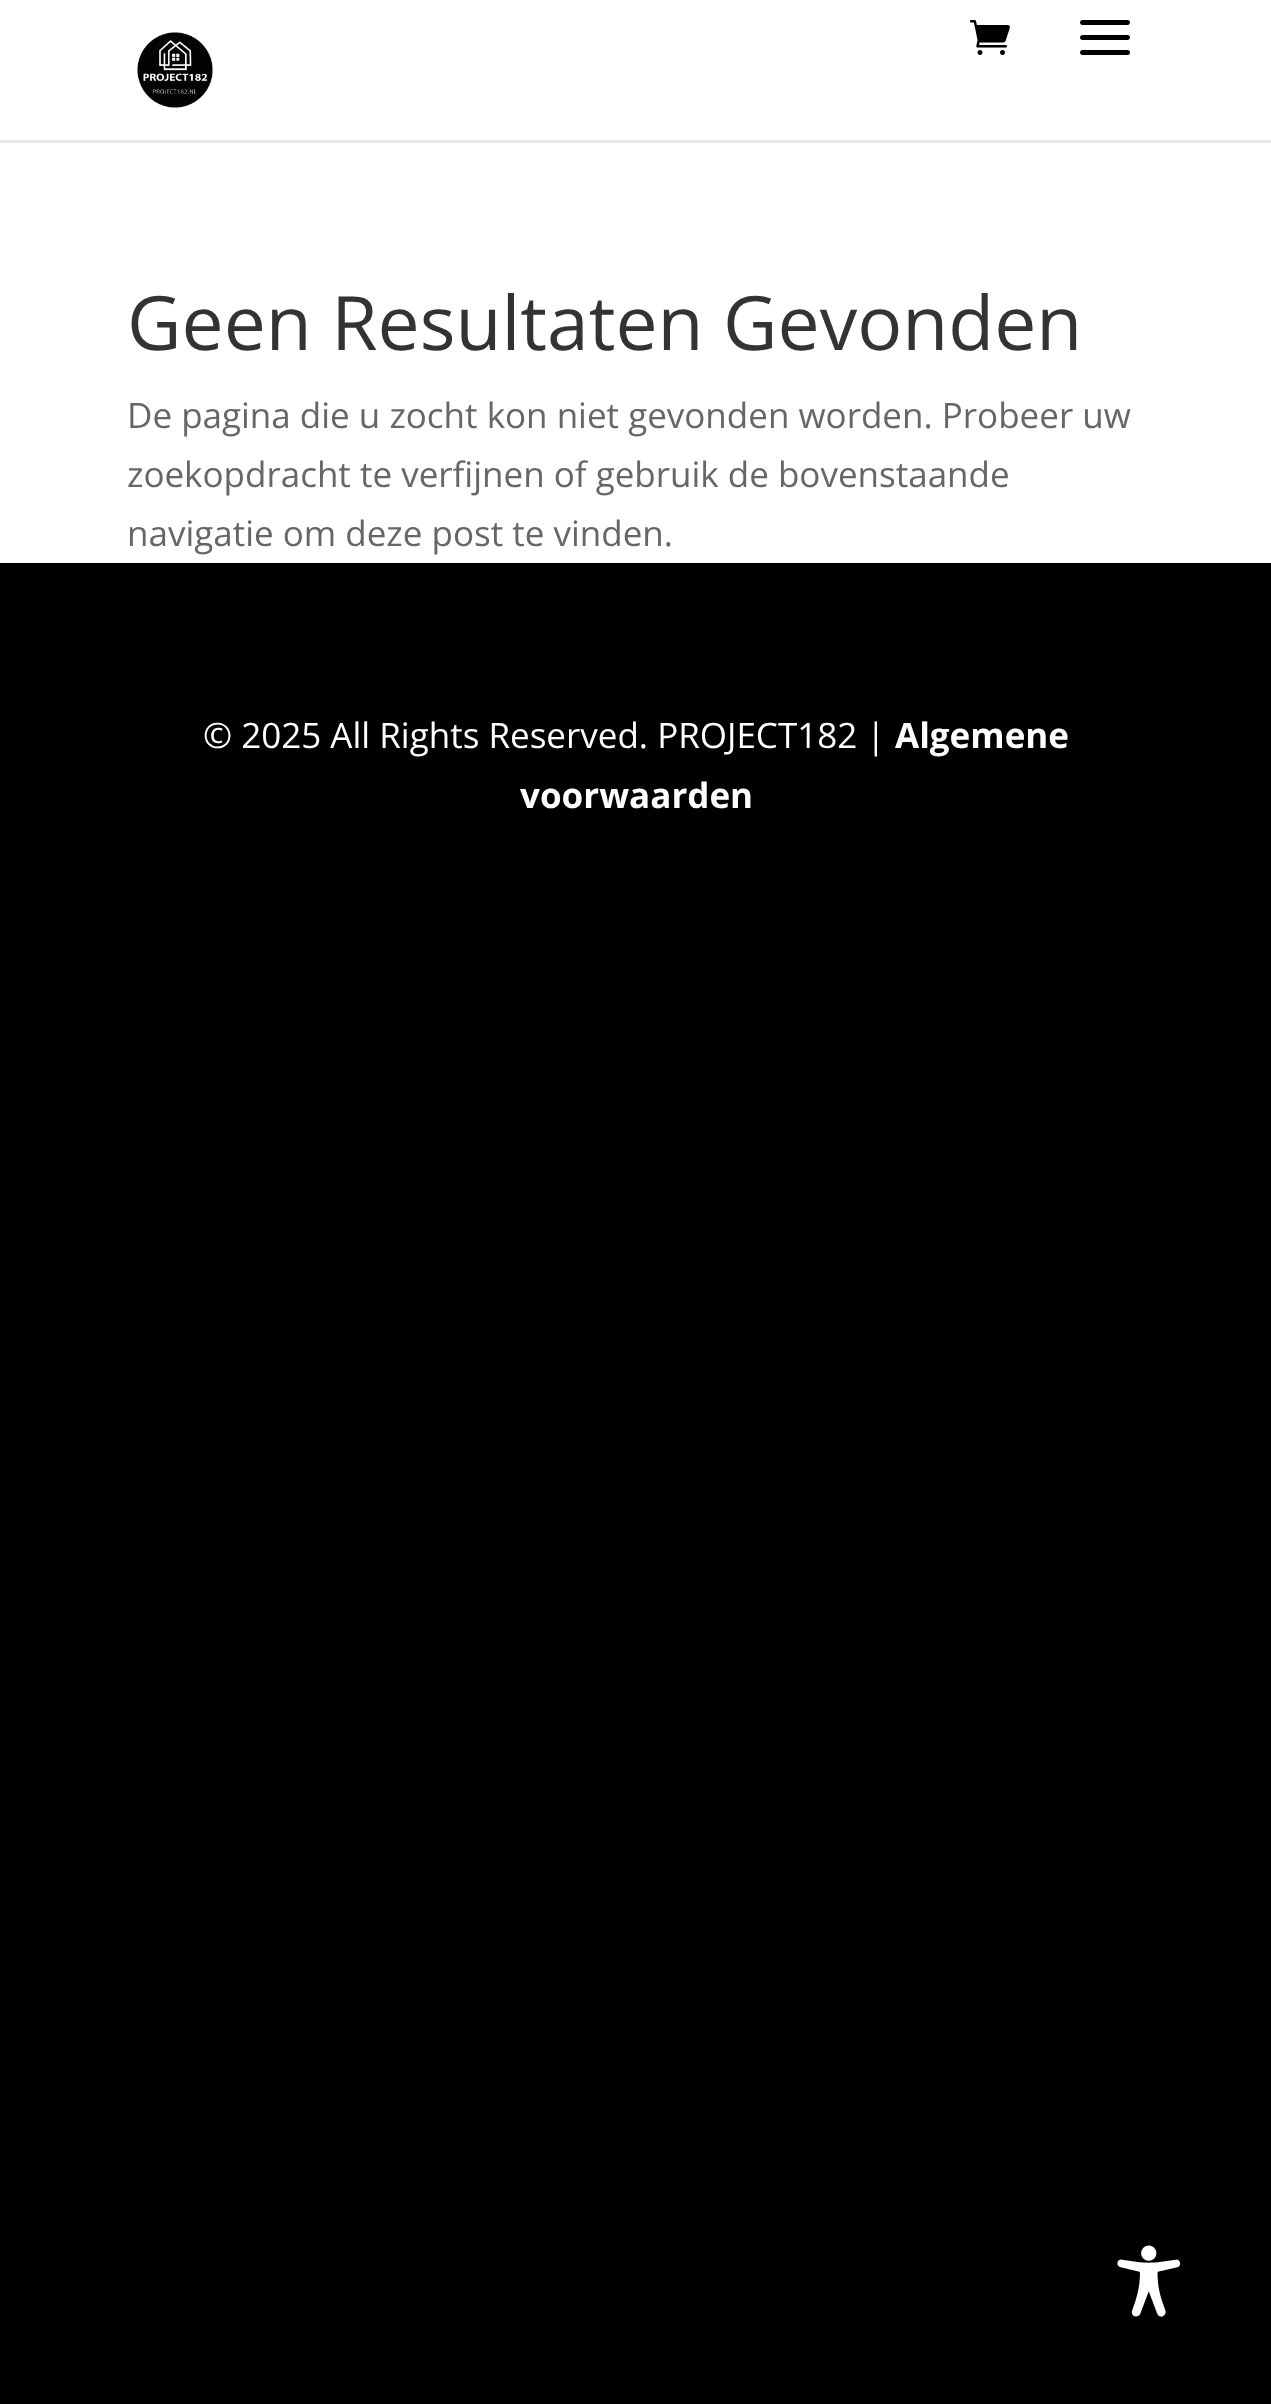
(async () => {
    const canvas = document.querySelector("canvas");
    canvas.width = 1271;
    canvas.height = 2404;
    const context = canvas.getContext("2d");
    context.miterLimit = 4;
    context.fontKerning = "normal";
    function write(s, x, y, font, color) {
        context.font = font;
        context.fillStyle = color;
        context.fillText(s, x, y);
    }
    function block(x, y, w, h, color) {
        context.fillStyle = color;
        context.fillRect(x, y, w, h);
    }
    async function photo(src, x, y, w, h) {
        const img = new Image();
        img.src = src;
        await img.decode();
        context.drawImage(img, x, y, w, h);
    }

    block(0, 0, 1271, 2404, "rgb(0, 0, 0)");
    context.fillStyle = "rgb(230, 230, 230)";
    context.beginPath();
    context.moveTo(0, 140);
    context.lineTo(0, 143);
    context.lineTo(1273, 143);
    context.lineTo(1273, 3);
    context.lineTo(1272, 3);
    context.lineTo(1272, 140);
    context.closePath();
    context.fill();
    block(0, 0, 1271, 140, "rgb(255, 255, 255)");
    await photo("media/1.png", 137, 32, 76, 76);
    await photo("media/2.png", 969, 20, 41, 35);
    await photo("media/3.png", 1080, 20, 50, 35);
    block(0, 143, 1271, 420, "rgb(255, 255, 255)");
    write("Geen Resultaten Gevonden", 127, 350, "75px Open Sans", "rgb(51, 51, 51)");
    write("De pagina die u zocht kon niet gevonden worden. Probeer uw", 127, 428, "35px Open Sans", "rgb(102, 102, 102)");
    write("zoekopdracht te verfijnen of gebruik de bovenstaande", 127, 487, "35px Open Sans", "rgb(102, 102, 102)");
    write("navigatie om deze post te vinden.", 127, 546, "35px Open Sans", "rgb(102, 102, 102)");
    write("© 2025 All Rights Reserved. PROJECT182 |", 203, 748, "35px Open Sans", "rgb(255, 255, 255)");
    write("Algemene", 895, 748, "bold 35px Open Sans", "rgb(255, 255, 255)");
    write("voorwaarden", 520, 808, "bold 35px Open Sans", "rgb(255, 255, 255)");
    await photo("media/4.png", 1117, 2245, 64, 72);
})();
